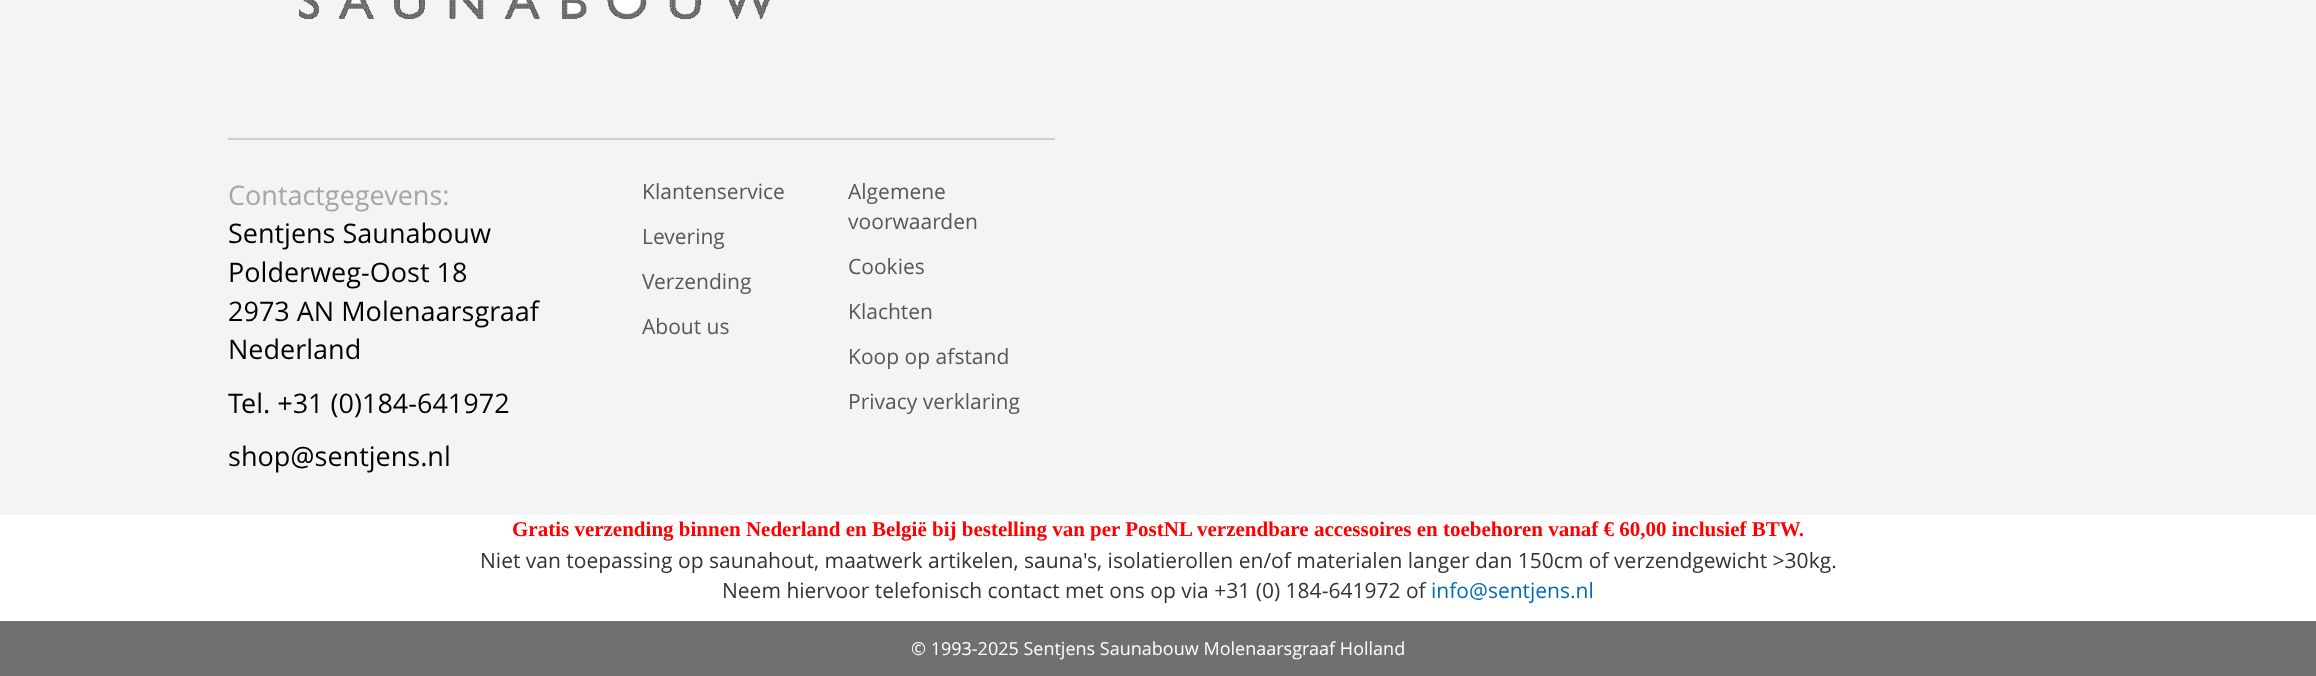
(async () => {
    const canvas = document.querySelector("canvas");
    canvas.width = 2316;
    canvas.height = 676;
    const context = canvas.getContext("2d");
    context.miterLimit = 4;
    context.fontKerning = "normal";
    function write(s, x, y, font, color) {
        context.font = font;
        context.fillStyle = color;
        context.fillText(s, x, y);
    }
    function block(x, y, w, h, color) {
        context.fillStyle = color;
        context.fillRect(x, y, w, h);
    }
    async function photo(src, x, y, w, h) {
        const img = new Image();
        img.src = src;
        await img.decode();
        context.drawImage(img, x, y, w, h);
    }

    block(0, 0, 2316, 676, "rgb(255, 255, 255)");
    block(0, 0, 2316, 515, "rgb(244, 244, 244)");
    await photo("media/1.png", 299, 0, 471, 19);
    block(228, 138, 827, 2, "rgb(206, 206, 206)");
    write("Contactgegevens:", 228, 205, "27px Open Sans", "rgb(166, 166, 166)");
    write("Sentjens Saunabouw", 228, 243, "27px Open Sans", "rgb(0, 0, 0)");
    write("Polderweg-Oost 18", 228, 282, "27px Open Sans", "rgb(0, 0, 0)");
    write("2973 AN Molenaarsgraaf", 228, 321, "27px Open Sans", "rgb(0, 0, 0)");
    write("Nederland", 228, 359, "27px Open Sans", "rgb(0, 0, 0)");
    write("Tel. +31 (0)184-641972", 228, 413, "27px Open Sans", "rgb(0, 0, 0)");
    write("shop@sentjens.nl", 228, 466, "27px Open Sans", "rgb(0, 0, 0)");
    write("Klantenservice", 642, 199, "21px Open Sans", "rgb(87, 87, 87)");
    write("Levering", 642, 244, "21px Open Sans", "rgb(87, 87, 87)");
    write("Verzending", 642, 289, "21px Open Sans", "rgb(87, 87, 87)");
    write("About us", 642, 334, "21px Open Sans", "rgb(87, 87, 87)");
    write("Algemene", 848, 199, "21px Open Sans", "rgb(87, 87, 87)");
    write("voorwaarden", 848, 229, "21px Open Sans", "rgb(87, 87, 87)");
    write("Cookies", 848, 274, "21px Open Sans", "rgb(87, 87, 87)");
    write("Klachten", 848, 319, "21px Open Sans", "rgb(87, 87, 87)");
    write("Koop op afstand", 848, 364, "21px Open Sans", "rgb(87, 87, 87)");
    write("Privacy verklaring", 848, 409, "21px Open Sans", "rgb(87, 87, 87)");
    write("Gratis verzending binnen Nederland en België bij bestelling van per PostNL verzendbare accessoires en toebehoren vanaf € 60,00 inclusief BTW.", 512, 536, "bold 21px Liberation Serif", "rgb(255, 0, 0)");
    write("Niet van toepassing op saunahout, maatwerk artikelen, sauna's, isolatierollen en/of materialen langer dan 150cm of verzendgewicht >30kg.", 480, 568, "21px Open Sans", "rgb(51, 51, 51)");
    write("Neem hiervoor telefonisch contact met ons op via +31 (0) 184-641972 of", 722, 598, "21px Open Sans", "rgb(51, 51, 51)");
    write("info@sentjens.nl", 1431, 598, "21px Open Sans", "rgb(0, 107, 180)");
    block(0, 621, 2316, 55, "rgb(110, 113, 110)");
    write("© 1993-2025 Sentjens Saunabouw Molenaarsgraaf Holland", 911, 655, "18px Open Sans", "rgb(255, 255, 255)");
})();
